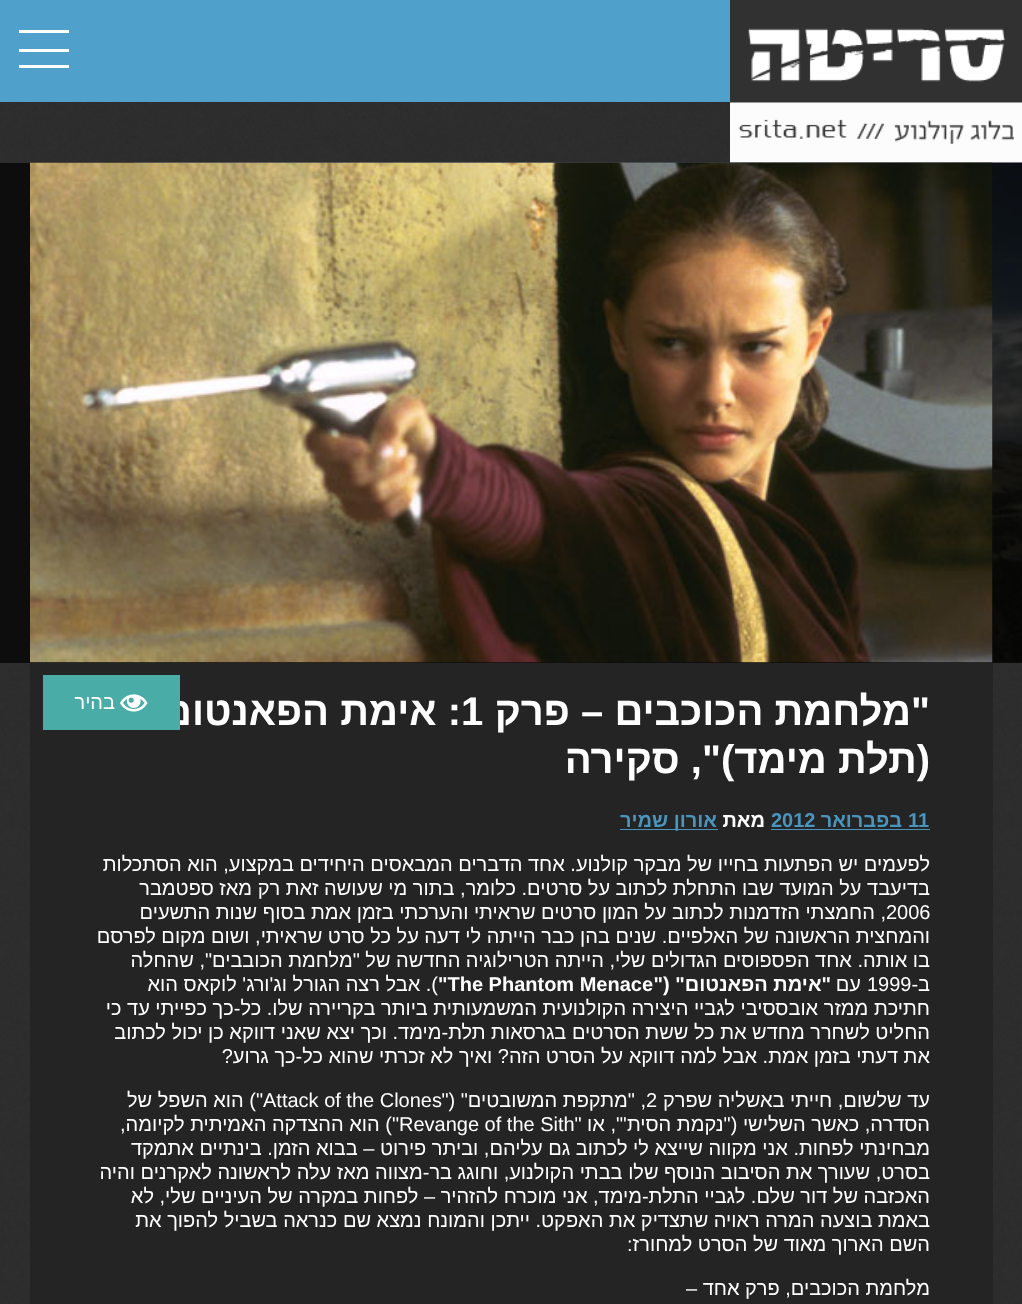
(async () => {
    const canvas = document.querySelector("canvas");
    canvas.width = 1022;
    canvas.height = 1304;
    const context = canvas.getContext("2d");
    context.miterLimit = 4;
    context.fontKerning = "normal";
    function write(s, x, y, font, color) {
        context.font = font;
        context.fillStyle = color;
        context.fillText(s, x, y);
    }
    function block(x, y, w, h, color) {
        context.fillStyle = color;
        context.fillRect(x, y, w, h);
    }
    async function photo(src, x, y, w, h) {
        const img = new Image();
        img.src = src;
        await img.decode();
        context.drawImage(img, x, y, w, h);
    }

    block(0, 0, 1022, 1304, "rgb(255, 255, 255)");
    await photo("media/1.png", 0, 102, 1022, 1202);
    block(0, 0, 730, 102, "rgb(79, 161, 204)");
    await photo("media/2.png", 730, 0, 292, 163);
    block(19, 30, 50, 3, "rgb(255, 255, 255)");
    block(19, 49, 50, 3, "rgb(255, 255, 255)");
    block(19, 65, 50, 3, "rgb(255, 255, 255)");
    await photo("media/3.png", 134, 162, 888, 501);
    block(0, 163, 1022, 500, "rgba(0, 0, 0, 0.7)");
    await photo("media/4.png", 30, 162, 963, 501);
    block(30, 663, 963, 641, "rgb(37, 36, 36)");
    context.direction = "rtl";
    write("\"מלחמת הכוכבים – פרק", 930, 725, "bold 40px Liberation Sans", "rgb(255, 255, 255)");
    context.direction = "ltr";
    write("1", 461, 725, "bold 40px Liberation Sans", "rgb(255, 255, 255)");
    context.direction = "rtl";
    write(": אימת הפאנטום", 461, 725, "bold 40px Liberation Sans", "rgb(255, 255, 255)");
    write("(תלת מימד)\", סקירה", 930, 773, "bold 40px Liberation Sans", "rgb(255, 255, 255)");
    context.direction = "ltr";
    write("11", 908, 827, "bold 20px Liberation Sans", "rgb(73, 149, 189)");
    context.direction = "rtl";
    write("בפברואר", 902, 827, "bold 20px Liberation Sans", "rgb(73, 149, 189)");
    context.direction = "ltr";
    write("2012", 771, 827, "bold 20px Liberation Sans", "rgb(73, 149, 189)");
    block(771, 829, 159, 1, "rgb(73, 149, 189)");
    context.direction = "rtl";
    write("מאת", 765, 827, "bold 20px Liberation Sans", "rgb(255, 255, 255)");
    block(620, 829, 98, 1, "rgb(73, 149, 189)");
    write("אורון שמיר", 717, 827, "bold 20px Liberation Sans", "rgb(73, 149, 189)");
    write("לפעמים יש הפתעות בחייו של מבקר קולנוע. אחד הדברים המבאסים היחידים במקצוע, הוא הסתכלות", 930, 871, "20px Liberation Sans", "rgb(255, 255, 255)");
    write("בדיעבד על המועד שבו התחלת לכתוב על סרטים. כלומר, בתור מי שעושה זאת רק מאז ספטמבר", 930, 895, "20px Liberation Sans", "rgb(255, 255, 255)");
    context.direction = "ltr";
    write("2006", 886, 919, "20px Liberation Sans", "rgb(255, 255, 255)");
    context.direction = "rtl";
    write(", החמצתי הזדמנות לכתוב על המון סרטים שראיתי והערכתי בזמן אמת בסוף שנות התשעים", 886, 919, "20px Liberation Sans", "rgb(255, 255, 255)");
    write("והמחצית הראשונה של האלפיים. שנים בהן כבר הייתה לי דעה על כל סרט שראיתי, ושום מקום לפרסם", 930, 943, "20px Liberation Sans", "rgb(255, 255, 255)");
    write("בו אותה. אחד הפספוסים הגדולים שלי, הייתה הטרילוגיה החדשה של \"מלחמת הכובבים\", שהחלה", 930, 967, "20px Liberation Sans", "rgb(255, 255, 255)");
    write("ב-", 930, 991, "20px Liberation Sans", "rgb(255, 255, 255)");
    context.direction = "ltr";
    write("1999", 867, 991, "20px Liberation Sans", "rgb(255, 255, 255)");
    context.direction = "rtl";
    write("עם", 861, 991, "20px Liberation Sans", "rgb(255, 255, 255)");
    write("\"אימת הפאנטום\" (\"", 831, 991, "bold 20px Liberation Sans", "rgb(255, 255, 255)");
    context.direction = "ltr";
    write("\"The Phantom Menace", 438, 991, "bold 20px Liberation Sans", "rgb(255, 255, 255)");
    context.direction = "rtl";
    write("). אבל רצה הגורל וג'ורג' לוקאס הוא", 438, 991, "20px Liberation Sans", "rgb(255, 255, 255)");
    write("חתיכת ממזר אובססיבי לגביי היצירה הקולנועית המשמעותית ביותר בקריירה שלו. כל-כך כפייתי עד כי", 930, 1015, "20px Liberation Sans", "rgb(255, 255, 255)");
    write("החליט לשחרר מחדש את כל ששת הסרטים בגרסאות תלת-מימד. וכך יצא שאני דווקא כן יכול לכתוב", 930, 1039, "20px Liberation Sans", "rgb(255, 255, 255)");
    write("את דעתי בזמן אמת. אבל למה דווקא על הסרט הזה? ואיך לא זכרתי שהוא כל-כך גרוע?", 930, 1063, "20px Liberation Sans", "rgb(255, 255, 255)");
    write("עד שלשום, חייתי באשליה שפרק", 930, 1107, "20px Liberation Sans", "rgb(255, 255, 255)");
    context.direction = "ltr";
    write("2", 646, 1107, "20px Liberation Sans", "rgb(255, 255, 255)");
    context.direction = "rtl";
    write(", \"מתקפת המשובטים\" (\"", 646, 1107, "20px Liberation Sans", "rgb(255, 255, 255)");
    context.direction = "ltr";
    write("Attack of the Clones", 263, 1107, "20px Liberation Sans", "rgb(255, 255, 255)");
    context.direction = "rtl";
    write("\") הוא השפל של", 263, 1107, "20px Liberation Sans", "rgb(255, 255, 255)");
    write("הסדרה, כאשר השלישי (\"נקמת הסית'\", או \"", 930, 1131, "20px Liberation Sans", "rgb(255, 255, 255)");
    context.direction = "ltr";
    write("Revange of the Sith", 399, 1131, "20px Liberation Sans", "rgb(255, 255, 255)");
    context.direction = "rtl";
    write("\") הוא ההצדקה האמיתית לקיומה,", 399, 1131, "20px Liberation Sans", "rgb(255, 255, 255)");
    write("מבחינתי לפחות. אני מקווה שייצא לי לכתוב גם עליהם, וביתר פירוט – בבוא הזמן. בינתיים אתמקד", 930, 1155, "20px Liberation Sans", "rgb(255, 255, 255)");
    write("בסרט, שעורך את הסיבוב הנוסף שלו בבתי הקולנוע, וחוגג בר-מצווה מאז עלה לראשונה לאקרנים והיה", 930, 1179, "20px Liberation Sans", "rgb(255, 255, 255)");
    write("האכזבה של דור שלם. לגביי התלת-מימד, אני מוכרח להזהיר – לפחות במקרה של העיניים שלי, לא", 930, 1203, "20px Liberation Sans", "rgb(255, 255, 255)");
    write("באמת בוצעה המרה ראויה שתצדיק את האפקט. ייתכן והמונח נמצא שם כנראה בשביל להפוך את", 930, 1227, "20px Liberation Sans", "rgb(255, 255, 255)");
    write("השם הארוך מאוד של הסרט למחורז:", 930, 1251, "20px Liberation Sans", "rgb(255, 255, 255)");
    write("מלחמת הכוכבים, פרק אחד –", 930, 1295, "20px Liberation Sans", "rgb(255, 255, 255)");
    block(43, 675, 137, 55, "rgb(74, 172, 166)");
    await photo("media/5.png", 120, 694, 28, 18);
    write("בהיר", 115, 709, "20px Liberation Sans", "rgb(255, 255, 255)");
})();
